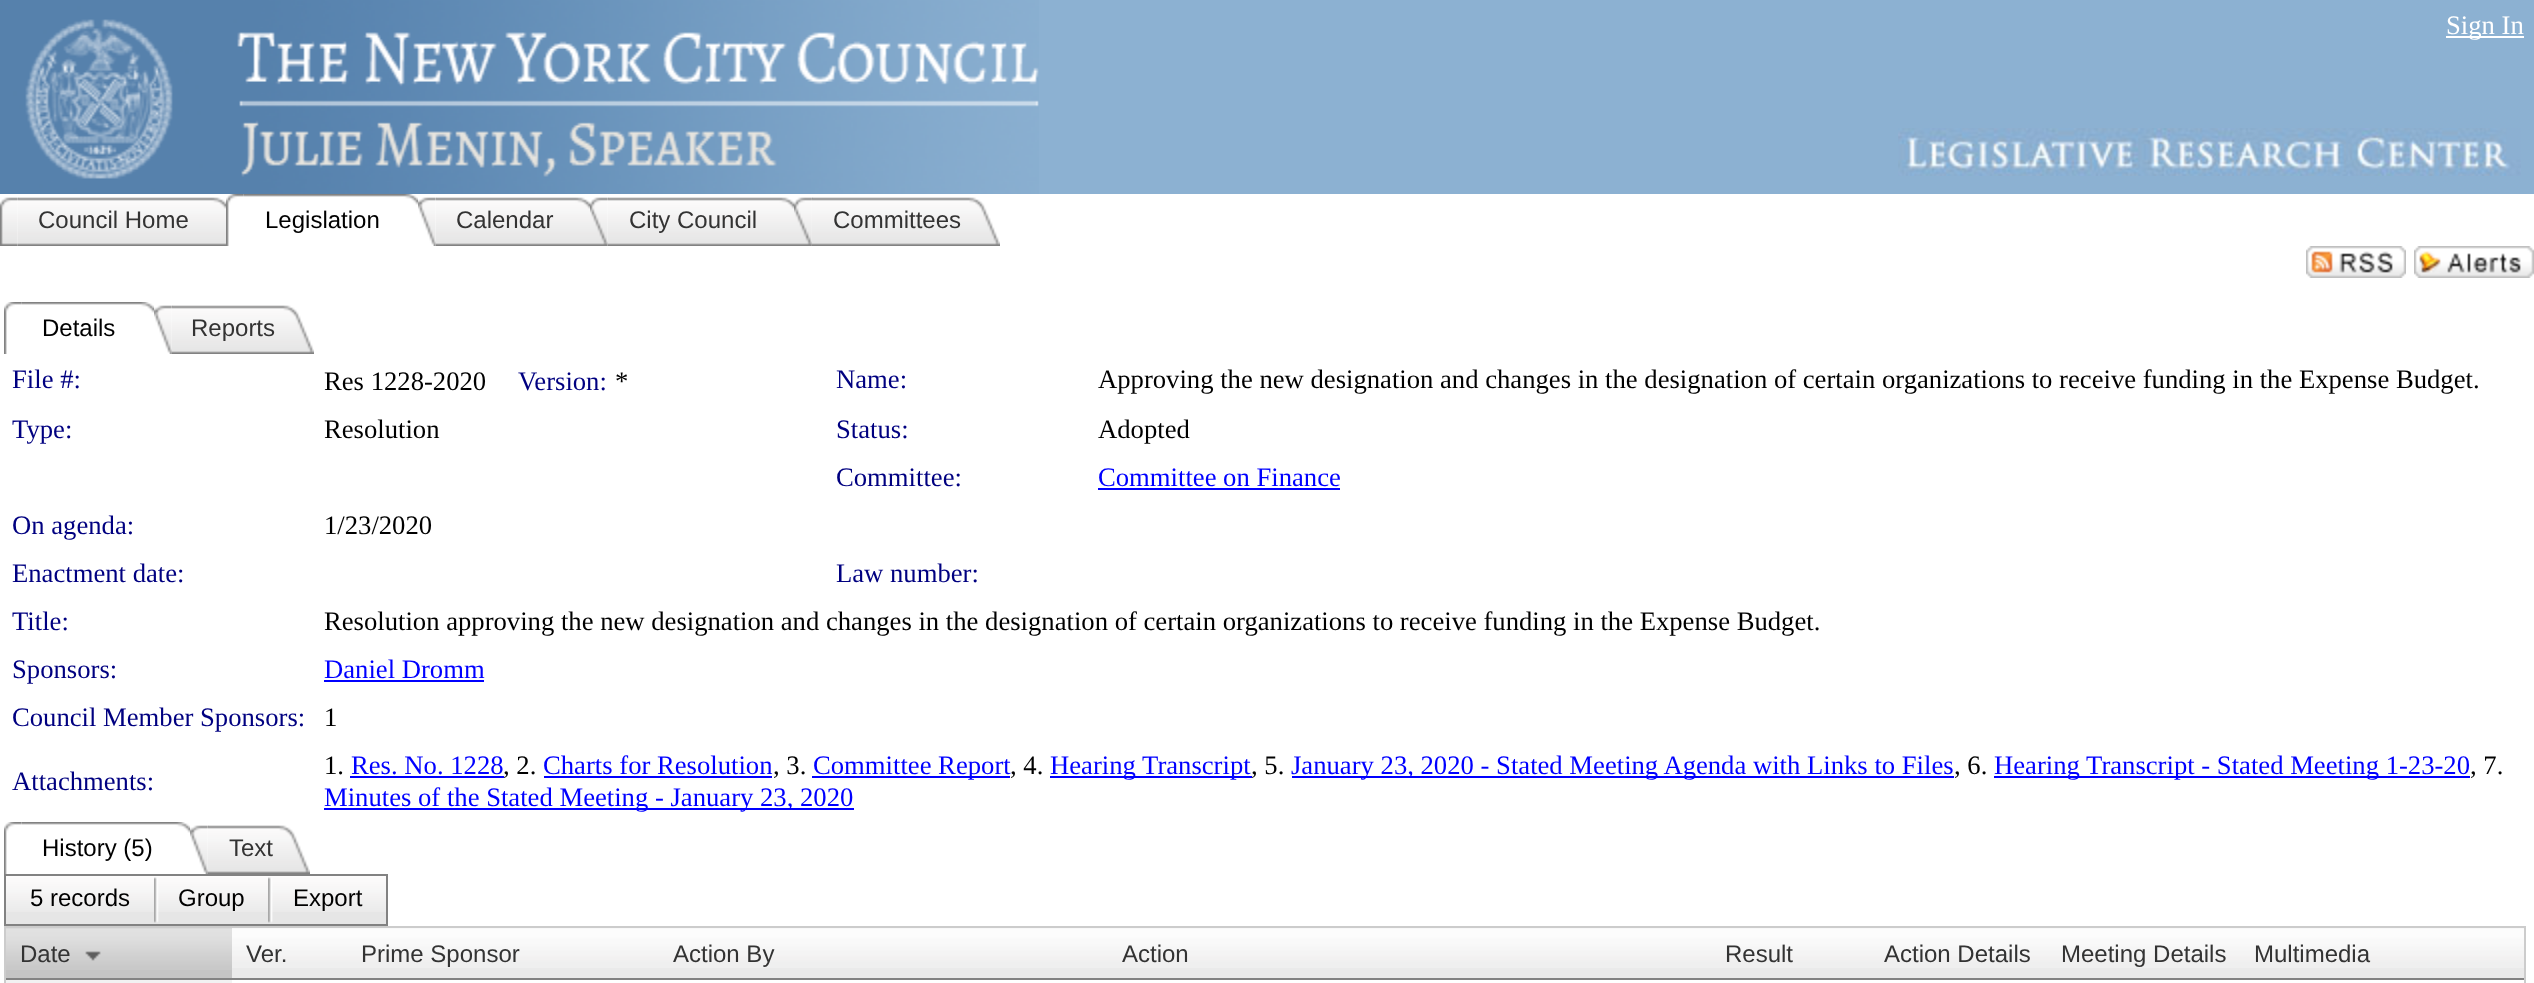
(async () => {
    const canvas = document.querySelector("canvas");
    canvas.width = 2534;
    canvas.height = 983;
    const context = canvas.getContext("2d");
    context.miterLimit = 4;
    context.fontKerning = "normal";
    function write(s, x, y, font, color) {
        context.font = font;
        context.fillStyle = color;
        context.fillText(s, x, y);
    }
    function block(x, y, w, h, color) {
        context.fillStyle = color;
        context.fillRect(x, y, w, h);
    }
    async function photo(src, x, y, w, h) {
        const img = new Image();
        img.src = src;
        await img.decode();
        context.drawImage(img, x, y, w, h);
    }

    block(0, 0, 2534, 983, "rgb(255, 255, 255)");
    block(1039, 0, 1495, 194, "rgb(140, 177, 210)");
    await photo("media/1.png", 0, 0, 1039, 194);
    await photo("media/2.png", 1898, 128, 623, 48);
    block(2446, 36, 78, 2, "rgb(255, 255, 255)");
    write("Sign In", 2446, 34, "26.67px Liberation Serif", "rgb(255, 255, 255)");
    await photo("media/3.png", 0, 197, 19, 49);
    await photo("media/4.png", 18, 197, 208, 49);
    write("Council Home", 38, 228, "24px Liberation Sans", "rgb(51, 51, 51)");
    await photo("media/5.png", 226, 194, 19, 52);
    await photo("media/6.png", 244, 194, 174, 11);
    write("Legislation", 265, 228, "24px Liberation Sans", "rgb(0, 0, 0)");
    await photo("media/7.png", 418, 197, 19, 49);
    await photo("media/8.png", 436, 197, 154, 49);
    write("Calendar", 456, 228, "24px Liberation Sans", "rgb(51, 51, 51)");
    await photo("media/9.png", 590, 197, 19, 49);
    await photo("media/10.png", 608, 197, 186, 49);
    write("City Council", 629, 228, "24px Liberation Sans", "rgb(51, 51, 51)");
    await photo("media/11.png", 794, 197, 19, 49);
    await photo("media/12.png", 812, 197, 188, 49);
    write("Committees", 833, 228, "24px Liberation Sans", "rgb(51, 51, 51)");
    await photo("media/13.png", 2306, 246, 100, 32);
    await photo("media/14.png", 2414, 246, 120, 32);
    await photo("media/5.png", 4, 302, 19, 52);
    await photo("media/15.png", 22, 302, 132, 11);
    write("Details", 42, 336, "24px Liberation Sans", "rgb(0, 0, 0)");
    await photo("media/16.png", 154, 305, 19, 49);
    await photo("media/17.png", 172, 305, 142, 49);
    write("Reports", 191, 336, "24px Liberation Sans", "rgb(51, 51, 51)");
    write("File #:", 12, 388, "26.67px Liberation Serif", "rgb(0, 0, 128)");
    write("Res 1228-2020", 324, 390, "26.67px Liberation Serif", "rgb(0, 0, 0)");
    write("Version:", 518, 390, "26.67px Liberation Serif", "rgb(0, 0, 128)");
    write("*", 615, 390, "26.67px Liberation Serif", "rgb(0, 0, 0)");
    write("Name:", 836, 388, "26.67px Liberation Serif", "rgb(0, 0, 128)");
    write("Approving the new designation and changes in the designation of certain organizations to receive funding in the Expense Budget.", 1098, 388, "26.67px Liberation Serif", "rgb(0, 0, 0)");
    write("Type:", 12, 438, "26.67px Liberation Serif", "rgb(0, 0, 128)");
    write("Resolution", 324, 438, "26.67px Liberation Serif", "rgb(0, 0, 0)");
    write("Status:", 836, 438, "26.67px Liberation Serif", "rgb(0, 0, 128)");
    write("Adopted", 1098, 438, "26.67px Liberation Serif", "rgb(0, 0, 0)");
    write("Committee:", 836, 486, "26.67px Liberation Serif", "rgb(0, 0, 128)");
    write("Committee on Finance", 1098, 486, "26.67px Liberation Serif", "rgb(0, 0, 255)");
    block(1098, 488, 242, 2, "rgb(0, 0, 255)");
    write("On agenda:", 12, 534, "26.67px Liberation Serif", "rgb(0, 0, 128)");
    write("1/23/2020", 324, 534, "26.67px Liberation Serif", "rgb(0, 0, 0)");
    write("Enactment date:", 12, 582, "26.67px Liberation Serif", "rgb(0, 0, 128)");
    write("Law number:", 836, 582, "26.67px Liberation Serif", "rgb(0, 0, 128)");
    write("Title:", 12, 630, "26.67px Liberation Serif", "rgb(0, 0, 128)");
    write("Resolution approving the new designation and changes in the designation of certain organizations to receive funding in the Expense Budget.", 324, 630, "26.67px Liberation Serif", "rgb(0, 0, 0)");
    write("Sponsors:", 12, 678, "26.67px Liberation Serif", "rgb(0, 0, 128)");
    write("Daniel Dromm", 324, 678, "26.67px Liberation Serif", "rgb(0, 0, 255)");
    block(324, 680, 160, 2, "rgb(0, 0, 255)");
    write("Council Member Sponsors:", 12, 726, "26.67px Liberation Serif", "rgb(0, 0, 128)");
    write("1", 324, 726, "26.67px Liberation Serif", "rgb(0, 0, 0)");
    write("Attachments:", 12, 790, "26.67px Liberation Serif", "rgb(0, 0, 128)");
    write("1.", 324, 774, "26.67px Liberation Serif", "rgb(0, 0, 0)");
    write("Res. No. 1228", 351, 774, "26.67px Liberation Serif", "rgb(0, 0, 255)");
    write(", 2.", 503, 774, "26.67px Liberation Serif", "rgb(0, 0, 0)");
    block(350, 776, 154, 2, "rgb(0, 0, 255)");
    write("Charts for Resolution", 543, 774, "26.67px Liberation Serif", "rgb(0, 0, 255)");
    write(", 3.", 773, 774, "26.67px Liberation Serif", "rgb(0, 0, 0)");
    block(544, 776, 228, 2, "rgb(0, 0, 255)");
    block(812, 776, 198, 2, "rgb(0, 0, 255)");
    write("Committee Report", 813, 774, "26.67px Liberation Serif", "rgb(0, 0, 255)");
    write(", 4.", 1010, 774, "26.67px Liberation Serif", "rgb(0, 0, 0)");
    block(1050, 776, 202, 2, "rgb(0, 0, 255)");
    write("Hearing Transcript", 1050, 774, "26.67px Liberation Serif", "rgb(0, 0, 255)");
    write(", 5.", 1251, 774, "26.67px Liberation Serif", "rgb(0, 0, 0)");
    block(1292, 776, 662, 2, "rgb(0, 0, 255)");
    write("January 23, 2020 - Stated Meeting Agenda with Links to Files", 1291, 774, "26.67px Liberation Serif", "rgb(0, 0, 255)");
    write(", 6.", 1954, 774, "26.67px Liberation Serif", "rgb(0, 0, 0)");
    block(1994, 776, 476, 2, "rgb(0, 0, 255)");
    write("Hearing Transcript - Stated Meeting 1-23-20", 1994, 774, "26.67px Liberation Serif", "rgb(0, 0, 255)");
    write(", 7.", 2470, 774, "26.67px Liberation Serif", "rgb(0, 0, 0)");
    block(324, 808, 530, 2, "rgb(0, 0, 255)");
    write("Minutes of the Stated Meeting - January 23, 2020", 324, 806, "26.67px Liberation Serif", "rgb(0, 0, 255)");
    await photo("media/18.png", 4, 822, 19, 52);
    await photo("media/19.png", 22, 822, 168, 11);
    write("History (5)", 42, 856, "24px Liberation Sans", "rgb(0, 0, 0)");
    await photo("media/16.png", 190, 825, 19, 49);
    await photo("media/20.png", 208, 825, 102, 49);
    write("Text", 229, 856, "24px Liberation Sans", "rgb(51, 51, 51)");
    block(6, 912, 380, 12, "rgb(230, 230, 230)");
    await photo("media/21.png", 6, 876, 380, 36);
    context.strokeStyle = "rgb(130, 130, 130)";
    context.lineWidth = 2;
    context.strokeRect(5, 875, 382, 50);
    write("5 records", 30, 906, "24px Liberation Sans", "rgb(0, 0, 0)");
    await photo("media/22.png", 154, 877, 5, 46);
    write("Group", 178, 906, "24px Liberation Sans", "rgb(0, 0, 0)");
    await photo("media/23.png", 268, 877, 5, 46);
    write("Export", 293, 906, "24px Liberation Sans", "rgb(0, 0, 0)");
    context.strokeStyle = "rgb(204, 204, 204)";
    context.strokeRect(5, 927, 2520, 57);
    block(6, 928, 226, 50, "rgb(196, 196, 196)");
    await photo("media/24.png", 6, 928, 226, 42);
    block(6, 978, 2518, 2, "rgb(130, 130, 130)");
    write("Date", 20, 962, "24px Liberation Sans", "rgb(51, 51, 51)");
    await photo("media/25.png", 85, 951, 16, 10);
    block(232, 928, 2292, 50, "rgb(234, 234, 234)");
    await photo("media/26.png", 232, 928, 114, 40);
    write("Ver.", 246, 962, "24px Liberation Sans", "rgb(51, 51, 51)");
    await photo("media/27.png", 346, 928, 314, 40);
    write("Prime Sponsor", 361, 962, "24px Liberation Sans", "rgb(51, 51, 51)");
    await photo("media/28.png", 660, 928, 448, 40);
    write("Action By", 673, 962, "24px Liberation Sans", "rgb(51, 51, 51)");
    await photo("media/29.png", 1108, 928, 602, 40);
    write("Action", 1122, 962, "24px Liberation Sans", "rgb(51, 51, 51)");
    await photo("media/30.png", 1710, 928, 160, 40);
    write("Result", 1725, 962, "24px Liberation Sans", "rgb(51, 51, 51)");
    await photo("media/31.png", 1870, 928, 176, 40);
    write("Action Details", 1884, 962, "24px Liberation Sans", "rgb(51, 51, 51)");
    await photo("media/32.png", 2046, 928, 194, 40);
    write("Meeting Details", 2061, 962, "24px Liberation Sans", "rgb(51, 51, 51)");
    await photo("media/33.png", 2240, 928, 284, 40);
    write("Multimedia", 2254, 962, "24px Liberation Sans", "rgb(51, 51, 51)");
    block(6, 980, 226, 3, "rgb(242, 242, 242)");
})();
